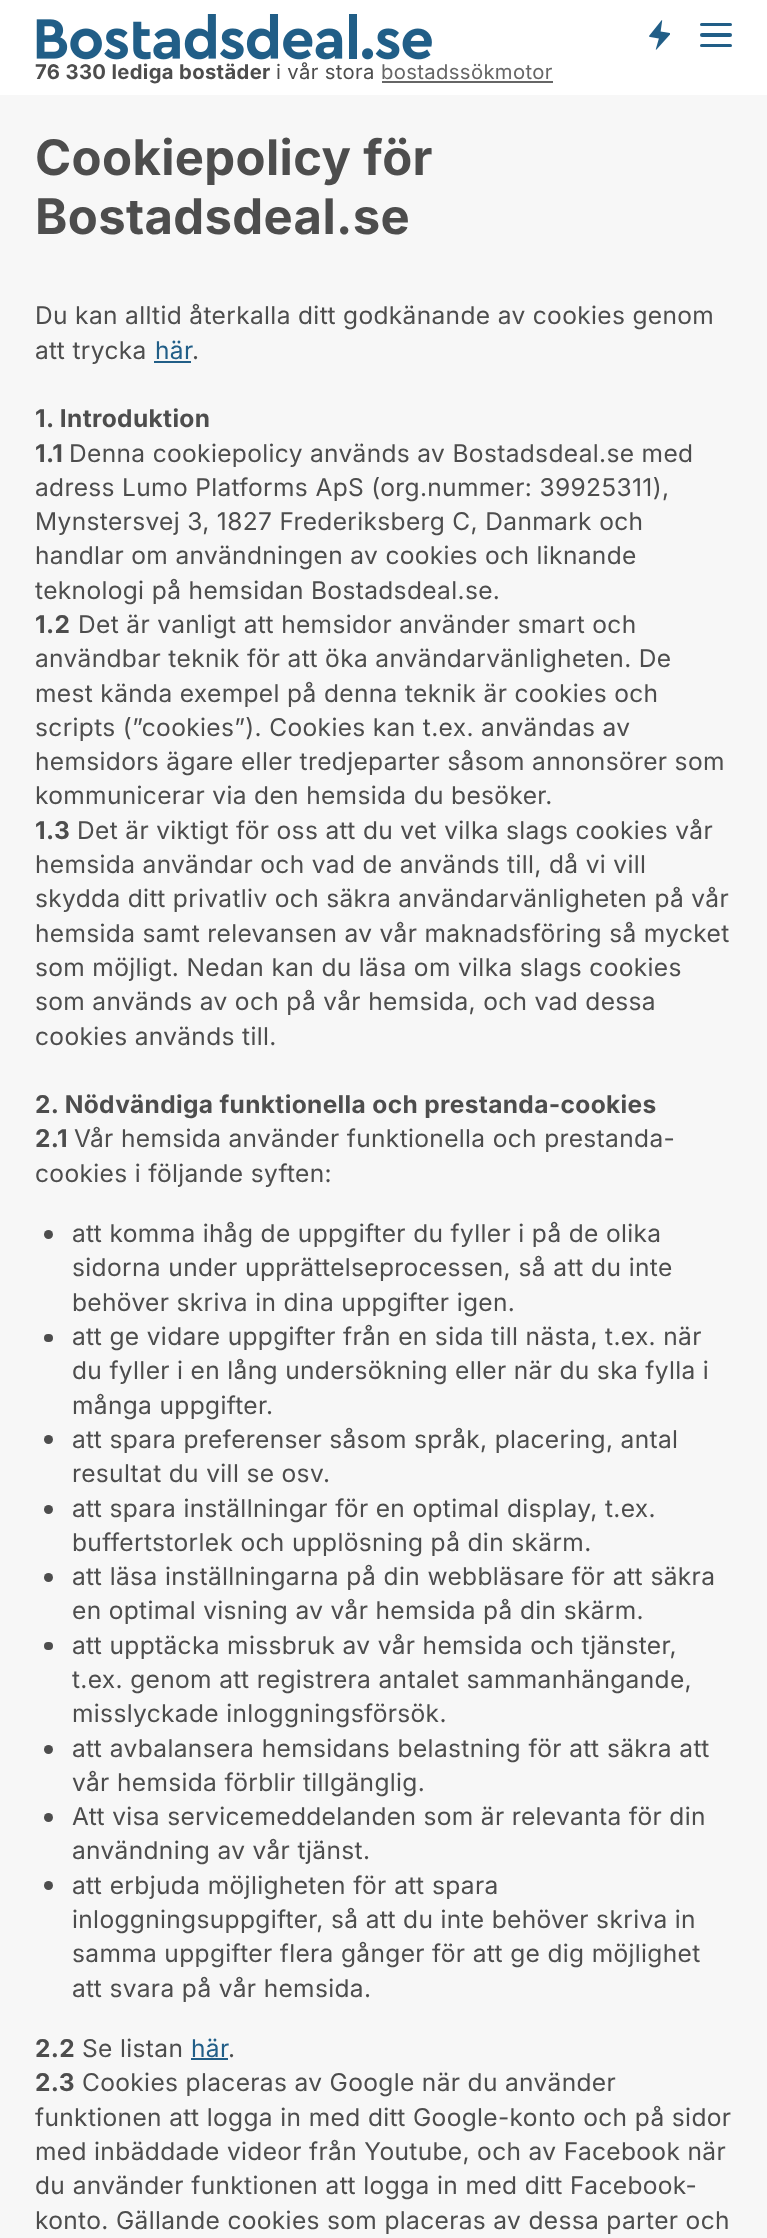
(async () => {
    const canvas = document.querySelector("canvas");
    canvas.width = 767;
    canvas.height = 2238;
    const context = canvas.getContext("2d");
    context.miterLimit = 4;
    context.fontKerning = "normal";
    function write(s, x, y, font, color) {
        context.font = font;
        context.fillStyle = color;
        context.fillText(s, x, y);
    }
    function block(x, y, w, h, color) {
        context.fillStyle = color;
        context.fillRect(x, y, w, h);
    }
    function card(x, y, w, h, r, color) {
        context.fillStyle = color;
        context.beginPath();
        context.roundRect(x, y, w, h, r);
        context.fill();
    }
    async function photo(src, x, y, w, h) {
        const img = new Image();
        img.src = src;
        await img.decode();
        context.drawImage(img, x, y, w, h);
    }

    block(0, 0, 767, 2238, "rgb(255, 255, 255)");
    await photo("media/1.png", 36, 14, 396, 46);
    await photo("media/2.png", 649, 20, 21, 30);
    card(700, 23, 32, 3, 1.5, "rgb(33, 94, 135)");
    card(700, 33, 32, 4, 2, "rgb(33, 94, 135)");
    card(700, 44, 32, 3, 1.5, "rgb(33, 94, 135)");
    context.letterSpacing = "0.35px";
    write("76 330 lediga bostäder", 35, 79, "bold 20.25px Inter", "rgb(77, 77, 77)");
    write("i vår stora", 276, 79, "20.25px Inter", "rgb(77, 77, 77)");
    write("bostadssökmotor", 381, 79, "20.25px Inter", "rgb(102, 102, 102)");
    block(382, 81, 171, 2, "rgb(102, 102, 102)");
    block(0, 95, 767, 2143, "rgb(247, 247, 247)");
    write("Cookiepolicy för", 35, 175, "bold 49px Inter", "rgb(77, 77, 77)");
    write("Bostadsdeal.se", 35, 234, "bold 49px Inter", "rgb(77, 77, 77)");
    write("Du kan alltid återkalla ditt godkänande av cookies genom", 35, 324, "24.5px Inter", "rgb(77, 77, 77)");
    write("att trycka", 35, 359, "24.5px Inter", "rgb(77, 77, 77)");
    write("här", 155, 359, "24.5px Inter", "rgb(33, 94, 135)");
    block(154, 361, 37, 2, "rgb(33, 94, 135)");
    write(".", 192, 359, "24.5px Inter", "rgb(77, 77, 77)");
    write("1. Introduktion", 35, 427, "bold 24.5px Inter", "rgb(77, 77, 77)");
    write("1.1", 35, 462, "bold 24.5px Inter", "rgb(77, 77, 77)");
    write("Denna cookiepolicy används av Bostadsdeal.se med", 69, 462, "24.5px Inter", "rgb(77, 77, 77)");
    write("adress Lumo Platforms ApS (org.nummer: 39925311),", 35, 496, "24.5px Inter", "rgb(77, 77, 77)");
    write("Mynstersvej 3, 1827 Frederiksberg C, Danmark och", 35, 530, "24.5px Inter", "rgb(77, 77, 77)");
    write("handlar om användningen av cookies och liknande", 35, 564, "24.5px Inter", "rgb(77, 77, 77)");
    write("teknologi på hemsidan Bostadsdeal.se.", 35, 599, "24.5px Inter", "rgb(77, 77, 77)");
    write("1.2", 35, 633, "bold 24.5px Inter", "rgb(77, 77, 77)");
    write("Det är vanligt att hemsidor använder smart och", 78, 633, "24.5px Inter", "rgb(77, 77, 77)");
    write("användbar teknik för att öka användarvänligheten. De", 35, 667, "24.5px Inter", "rgb(77, 77, 77)");
    write("mest kända exempel på denna teknik är cookies och", 35, 702, "24.5px Inter", "rgb(77, 77, 77)");
    write("scripts (”cookies”). Cookies kan t.ex. användas av", 35, 736, "24.5px Inter", "rgb(77, 77, 77)");
    write("hemsidors ägare eller tredjeparter såsom annonsörer som", 35, 770, "24.5px Inter", "rgb(77, 77, 77)");
    write("kommunicerar via den hemsida du besöker.", 35, 804, "24.5px Inter", "rgb(77, 77, 77)");
    write("1.3", 35, 839, "bold 24.5px Inter", "rgb(77, 77, 77)");
    write("Det är viktigt för oss att du vet vilka slags cookies vår", 77, 839, "24.5px Inter", "rgb(77, 77, 77)");
    write("hemsida användar och vad de används till, då vi vill", 35, 873, "24.5px Inter", "rgb(77, 77, 77)");
    write("skydda ditt privatliv och säkra användarvänligheten på vår", 35, 907, "24.5px Inter", "rgb(77, 77, 77)");
    write("hemsida samt relevansen av vår maknadsföring så mycket", 35, 942, "24.5px Inter", "rgb(77, 77, 77)");
    write("som möjligt. Nedan kan du läsa om vilka slags cookies", 35, 976, "24.5px Inter", "rgb(77, 77, 77)");
    write("som används av och på vår hemsida, och vad dessa", 35, 1010, "24.5px Inter", "rgb(77, 77, 77)");
    write("cookies används till.", 35, 1045, "24.5px Inter", "rgb(77, 77, 77)");
    write("2. Nödvändiga funktionella och prestanda-cookies", 35, 1113, "bold 24.5px Inter", "rgb(77, 77, 77)");
    write("2.1", 35, 1147, "bold 24.5px Inter", "rgb(77, 77, 77)");
    write("Vår hemsida använder funktionella och prestanda-", 74, 1147, "24.5px Inter", "rgb(77, 77, 77)");
    write("cookies i följande syften:", 35, 1182, "24.5px Inter", "rgb(77, 77, 77)");
    context.beginPath();
    context.arc(48.5, 1234.5, 4.5, 0, Math.PI * 2);
    context.fill();
    write("att komma ihåg de uppgifter du fyller i på de olika", 72, 1242, "24.5px Inter", "rgb(77, 77, 77)");
    context.wordSpacing = "0.25px";
    write("sidorna under upprättelseprocessen, så att du inte", 72, 1276, "24.5px Inter", "rgb(77, 77, 77)");
    context.wordSpacing = "0px";
    write("behöver skriva in dina uppgifter igen.", 72, 1311, "24.5px Inter", "rgb(77, 77, 77)");
    card(44, 1334, 9, 8, 4, "rgb(77, 77, 77)");
    write("att ge vidare uppgifter från en sida till nästa, t.ex. när", 72, 1345, "24.5px Inter", "rgb(77, 77, 77)");
    write("du fyller i en lång undersökning eller när du ska fylla i", 72, 1379, "24.5px Inter", "rgb(77, 77, 77)");
    write("många uppgifter.", 72, 1414, "24.5px Inter", "rgb(77, 77, 77)");
    context.beginPath();
    context.arc(48.5, 1439.5, 4.5, 0, Math.PI * 2);
    context.fill();
    write("att spara preferenser såsom språk, placering, antal", 72, 1448, "24.5px Inter", "rgb(77, 77, 77)");
    write("resultat du vill se osv.", 72, 1482, "24.5px Inter", "rgb(77, 77, 77)");
    context.beginPath();
    context.arc(48.5, 1509.5, 4.5, 0, Math.PI * 2);
    context.fill();
    write("att spara inställningar för en optimal display, t.ex.", 72, 1517, "24.5px Inter", "rgb(77, 77, 77)");
    write("buffertstorlek och upplösning på din skärm.", 72, 1551, "24.5px Inter", "rgb(77, 77, 77)");
    context.beginPath();
    context.arc(48.5, 1577.5, 4.5, 0, Math.PI * 2);
    context.fill();
    context.wordSpacing = "0.25px";
    write("att läsa inställningarna på din webbläsare för att säkra", 72, 1585, "24.5px Inter", "rgb(77, 77, 77)");
    context.wordSpacing = "0px";
    write("en optimal visning av vår hemsida på din skärm.", 72, 1619, "24.5px Inter", "rgb(77, 77, 77)");
    card(44, 1642, 9, 8, 4, "rgb(77, 77, 77)");
    write("att upptäcka missbruk av vår hemsida och tjänster,", 72, 1654, "24.5px Inter", "rgb(77, 77, 77)");
    write("t.ex. genom att registrera antalet sammanhängande,", 72, 1688, "24.5px Inter", "rgb(77, 77, 77)");
    write("misslyckade inloggningsförsök.", 72, 1722, "24.5px Inter", "rgb(77, 77, 77)");
    context.beginPath();
    context.arc(48.5, 1749.5, 4.5, 0, Math.PI * 2);
    context.fill();
    context.wordSpacing = "0.25px";
    write("att avbalansera hemsidans belastning för att säkra att", 72, 1757, "24.5px Inter", "rgb(77, 77, 77)");
    context.wordSpacing = "0px";
    write("vår hemsida förblir tillgänglig.", 72, 1791, "24.5px Inter", "rgb(77, 77, 77)");
    context.beginPath();
    context.arc(48.5, 1817.5, 4.5, 0, Math.PI * 2);
    context.fill();
    write("Att visa servicemeddelanden som är relevanta för din", 72, 1825, "24.5px Inter", "rgb(77, 77, 77)");
    write("användning av vår tjänst.", 72, 1859, "24.5px Inter", "rgb(77, 77, 77)");
    context.beginPath();
    context.arc(48.5, 1885.5, 4.5, 0, Math.PI * 2);
    context.fill();
    context.wordSpacing = "0.25px";
    write("att erbjuda möjligheten för att spara", 72, 1894, "24.5px Inter", "rgb(77, 77, 77)");
    context.wordSpacing = "0px";
    write("inloggningsuppgifter, så att du inte behöver skriva in", 72, 1928, "24.5px Inter", "rgb(77, 77, 77)");
    write("samma uppgifter flera gånger för att ge dig möjlighet", 72, 1962, "24.5px Inter", "rgb(77, 77, 77)");
    write("att svara på vår hemsida.", 72, 1997, "24.5px Inter", "rgb(77, 77, 77)");
    write("2.2", 35, 2057, "bold 24.5px Inter", "rgb(77, 77, 77)");
    write("Se listan", 82, 2057, "24.5px Inter", "rgb(77, 77, 77)");
    write("här", 191, 2057, "24.5px Inter", "rgb(33, 94, 135)");
    block(191, 2058, 37, 2, "rgb(33, 94, 135)");
    write(".", 228, 2057, "24.5px Inter", "rgb(77, 77, 77)");
    write("2.3", 35, 2091, "bold 24.5px Inter", "rgb(77, 77, 77)");
    write("Cookies placeras av Google när du använder", 82, 2091, "24.5px Inter", "rgb(77, 77, 77)");
    context.wordSpacing = "0.1px";
    write("funktionen att logga in med ditt Google-konto och på sidor", 35, 2126, "24.5px Inter", "rgb(77, 77, 77)");
    context.wordSpacing = "0px";
    write("med inbäddade videor från Youtube, och av Facebook när", 35, 2160, "24.5px Inter", "rgb(77, 77, 77)");
    context.wordSpacing = "0.25px";
    write("du använder funktionen att logga in med ditt Facebook-", 35, 2194, "24.5px Inter", "rgb(77, 77, 77)");
    context.wordSpacing = "0px";
    write("konto. Gällande cookies som placeras av dessa parter och", 35, 2229, "24.5px Inter", "rgb(77, 77, 77)");
})();
